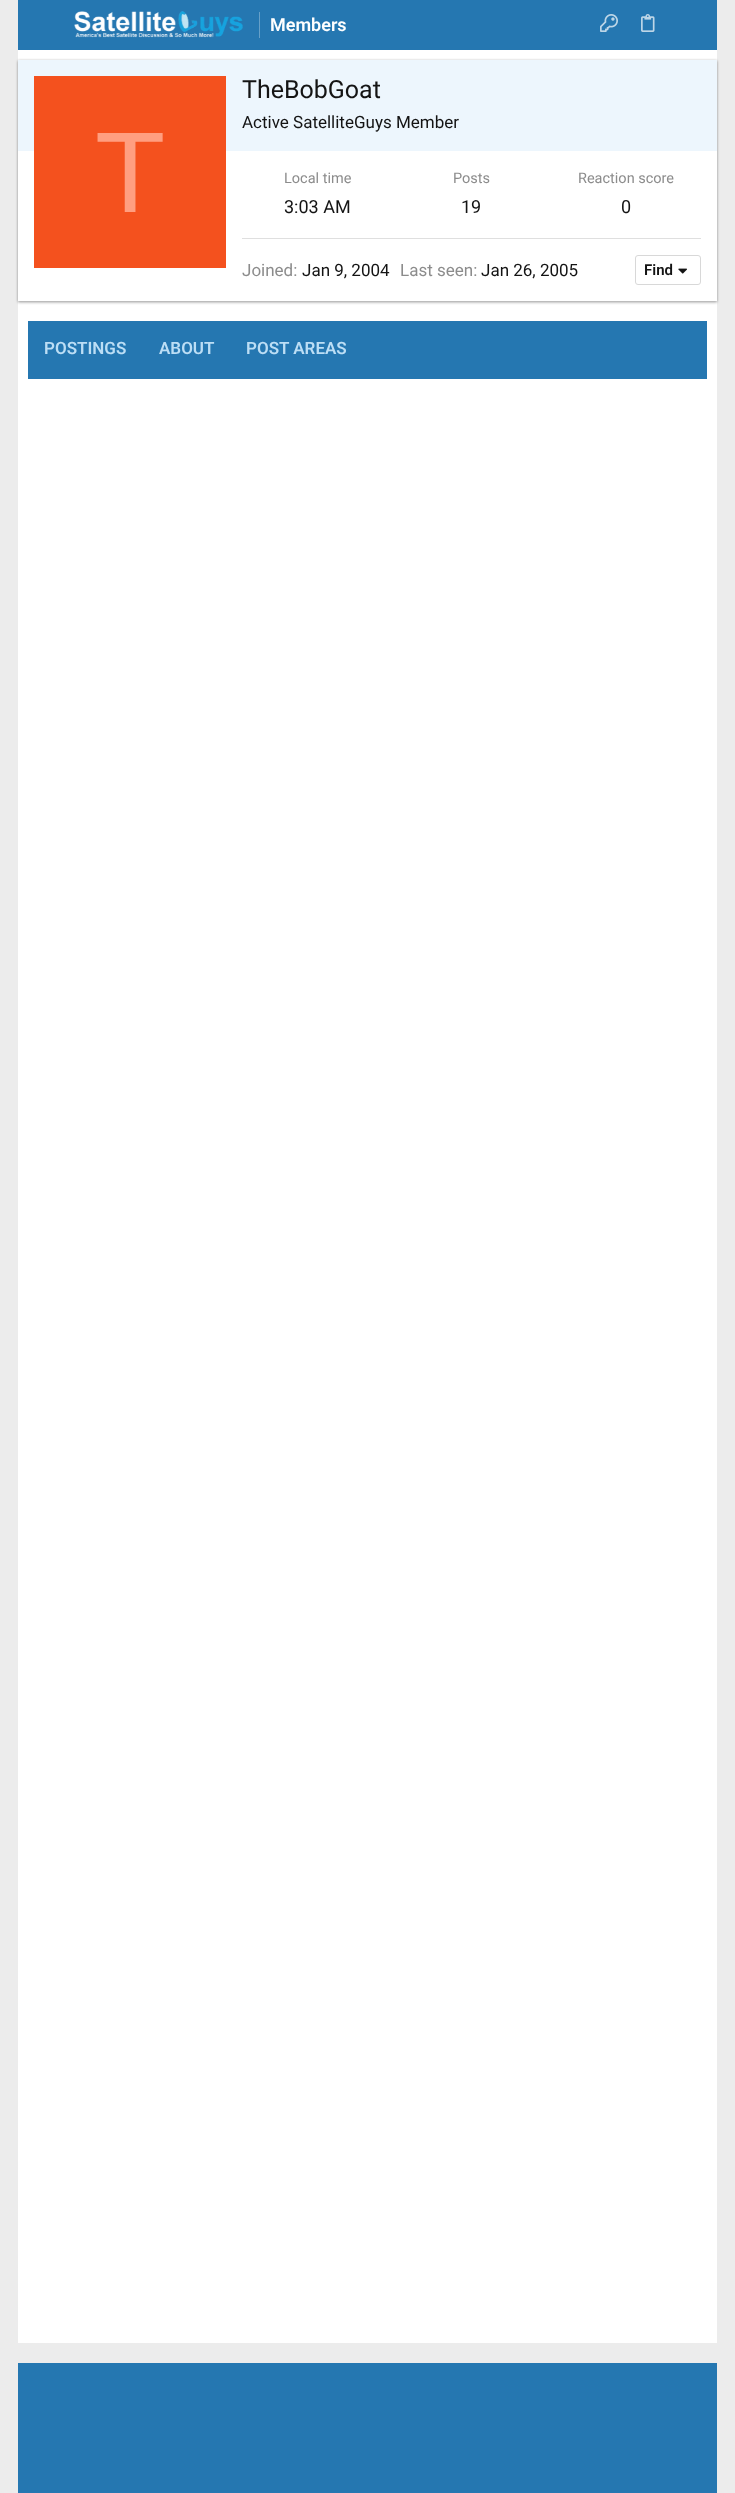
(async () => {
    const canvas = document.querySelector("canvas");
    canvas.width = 735;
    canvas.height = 2493;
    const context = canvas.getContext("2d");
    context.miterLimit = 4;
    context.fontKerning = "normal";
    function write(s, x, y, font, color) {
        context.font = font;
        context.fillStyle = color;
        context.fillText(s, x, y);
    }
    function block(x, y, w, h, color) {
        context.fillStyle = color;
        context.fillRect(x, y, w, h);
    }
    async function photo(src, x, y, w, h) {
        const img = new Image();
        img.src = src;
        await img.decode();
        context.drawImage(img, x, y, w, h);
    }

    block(0, 0, 735, 2493, "rgb(236, 236, 236)");
    block(18, 0, 699, 50, "rgb(37, 119, 177)");
    await photo("media/1.png", 74, 11, 169, 27);
    block(259, 12, 1, 26, "rgb(102, 160, 200)");
    write("Members", 270, 31, "600 18px Roboto", "rgb(255, 255, 255)");
    await photo("media/2.png", 600, 14, 18, 18);
    await photo("media/3.png", 641, 14, 14, 18);
    block(18, 50, 699, 2293, "rgb(255, 255, 255)");
    context.save();
    context.beginPath();
    context.moveTo(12, 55);
    context.lineTo(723, 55);
    context.lineTo(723, 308);
    context.lineTo(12, 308);
    context.closePath();
    context.moveTo(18, 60);
    context.lineTo(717, 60);
    context.lineTo(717, 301);
    context.lineTo(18, 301);
    context.closePath();
    context.clip("evenodd");
    context.fillStyle = "rgba(0, 0, 0, 0.2)";
    context.filter = "blur(1.5px)";
    context.beginPath();
    context.rect(18, 61, 699, 241);
    context.fill();
    context.filter = "none";
    context.restore();
    context.save();
    context.beginPath();
    context.moveTo(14, 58);
    context.lineTo(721, 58);
    context.lineTo(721, 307);
    context.lineTo(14, 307);
    context.closePath();
    context.moveTo(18, 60);
    context.lineTo(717, 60);
    context.lineTo(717, 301);
    context.lineTo(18, 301);
    context.closePath();
    context.clip("evenodd");
    context.fillStyle = "rgba(0, 0, 0, 0.12)";
    context.filter = "blur(1px)";
    context.beginPath();
    context.rect(18, 62, 699, 241);
    context.fill();
    context.filter = "none";
    context.restore();
    context.save();
    context.beginPath();
    context.moveTo(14, 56);
    context.lineTo(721, 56);
    context.lineTo(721, 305);
    context.lineTo(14, 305);
    context.closePath();
    context.moveTo(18, 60);
    context.lineTo(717, 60);
    context.lineTo(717, 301);
    context.lineTo(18, 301);
    context.closePath();
    context.clip("evenodd");
    context.fillStyle = "rgba(0, 0, 0, 0.14)";
    context.filter = "blur(1px)";
    context.beginPath();
    context.rect(18, 60, 699, 241);
    context.fill();
    context.filter = "none";
    context.restore();
    block(18, 60, 699, 91, "rgb(237, 246, 253)");
    write("TheBobGoat", 242, 98, "25px Roboto", "rgb(20, 20, 20)");
    write("Active SatelliteGuys Member", 242, 128, "17px Roboto", "rgb(20, 20, 20)");
    block(34, 76, 192, 192, "rgb(244, 81, 30)");
    write("T", 95, 212, "115px Liberation Sans", "rgb(255, 158, 128)");
    write("Local time", 284, 183, "14.5px Roboto", "rgb(140, 140, 140)");
    write("3:03 AM", 284, 213, "18px Roboto", "rgb(20, 20, 20)");
    write("Posts", 453, 183, "14.5px Roboto", "rgb(140, 140, 140)");
    write("19", 461, 213, "18px Roboto", "rgb(20, 20, 20)");
    write("Reaction score", 578, 183, "14.5px Roboto", "rgb(140, 140, 140)");
    write("0", 621, 213, "18px Roboto", "rgb(20, 20, 20)");
    block(242, 238, 459, 1, "rgb(223, 223, 223)");
    write("Joined:", 242, 276, "17px Roboto", "rgb(140, 140, 140)");
    write("Jan 9, 2004", 302, 276, "17px Roboto", "rgb(20, 20, 20)");
    write("Last seen:", 400, 276, "17px Roboto", "rgb(140, 140, 140)");
    write("Jan 26, 2005", 481, 276, "17px Roboto", "rgb(20, 20, 20)");
    context.beginPath();
    context.roundRect(635.5, 255.5, 65, 29, 2.5);
    context.strokeStyle = "rgb(216, 216, 216)";
    context.stroke();
    write("Find", 644, 275, "600 15px Roboto", "rgb(20, 20, 20)");
    await photo("media/4.png", 678, 268, 9, 6);
    block(28, 321, 679, 58, "rgb(37, 119, 177)");
    write("POSTINGS", 44, 354, "600 17px Roboto", "rgb(188, 222, 245)");
    write("ABOUT", 159, 354, "600 17px Roboto", "rgb(188, 222, 245)");
    write("POST AREAS", 246, 354, "600 17px Roboto", "rgb(188, 222, 245)");
    block(18, 2363, 699, 130, "rgb(37, 119, 177)");
})();
